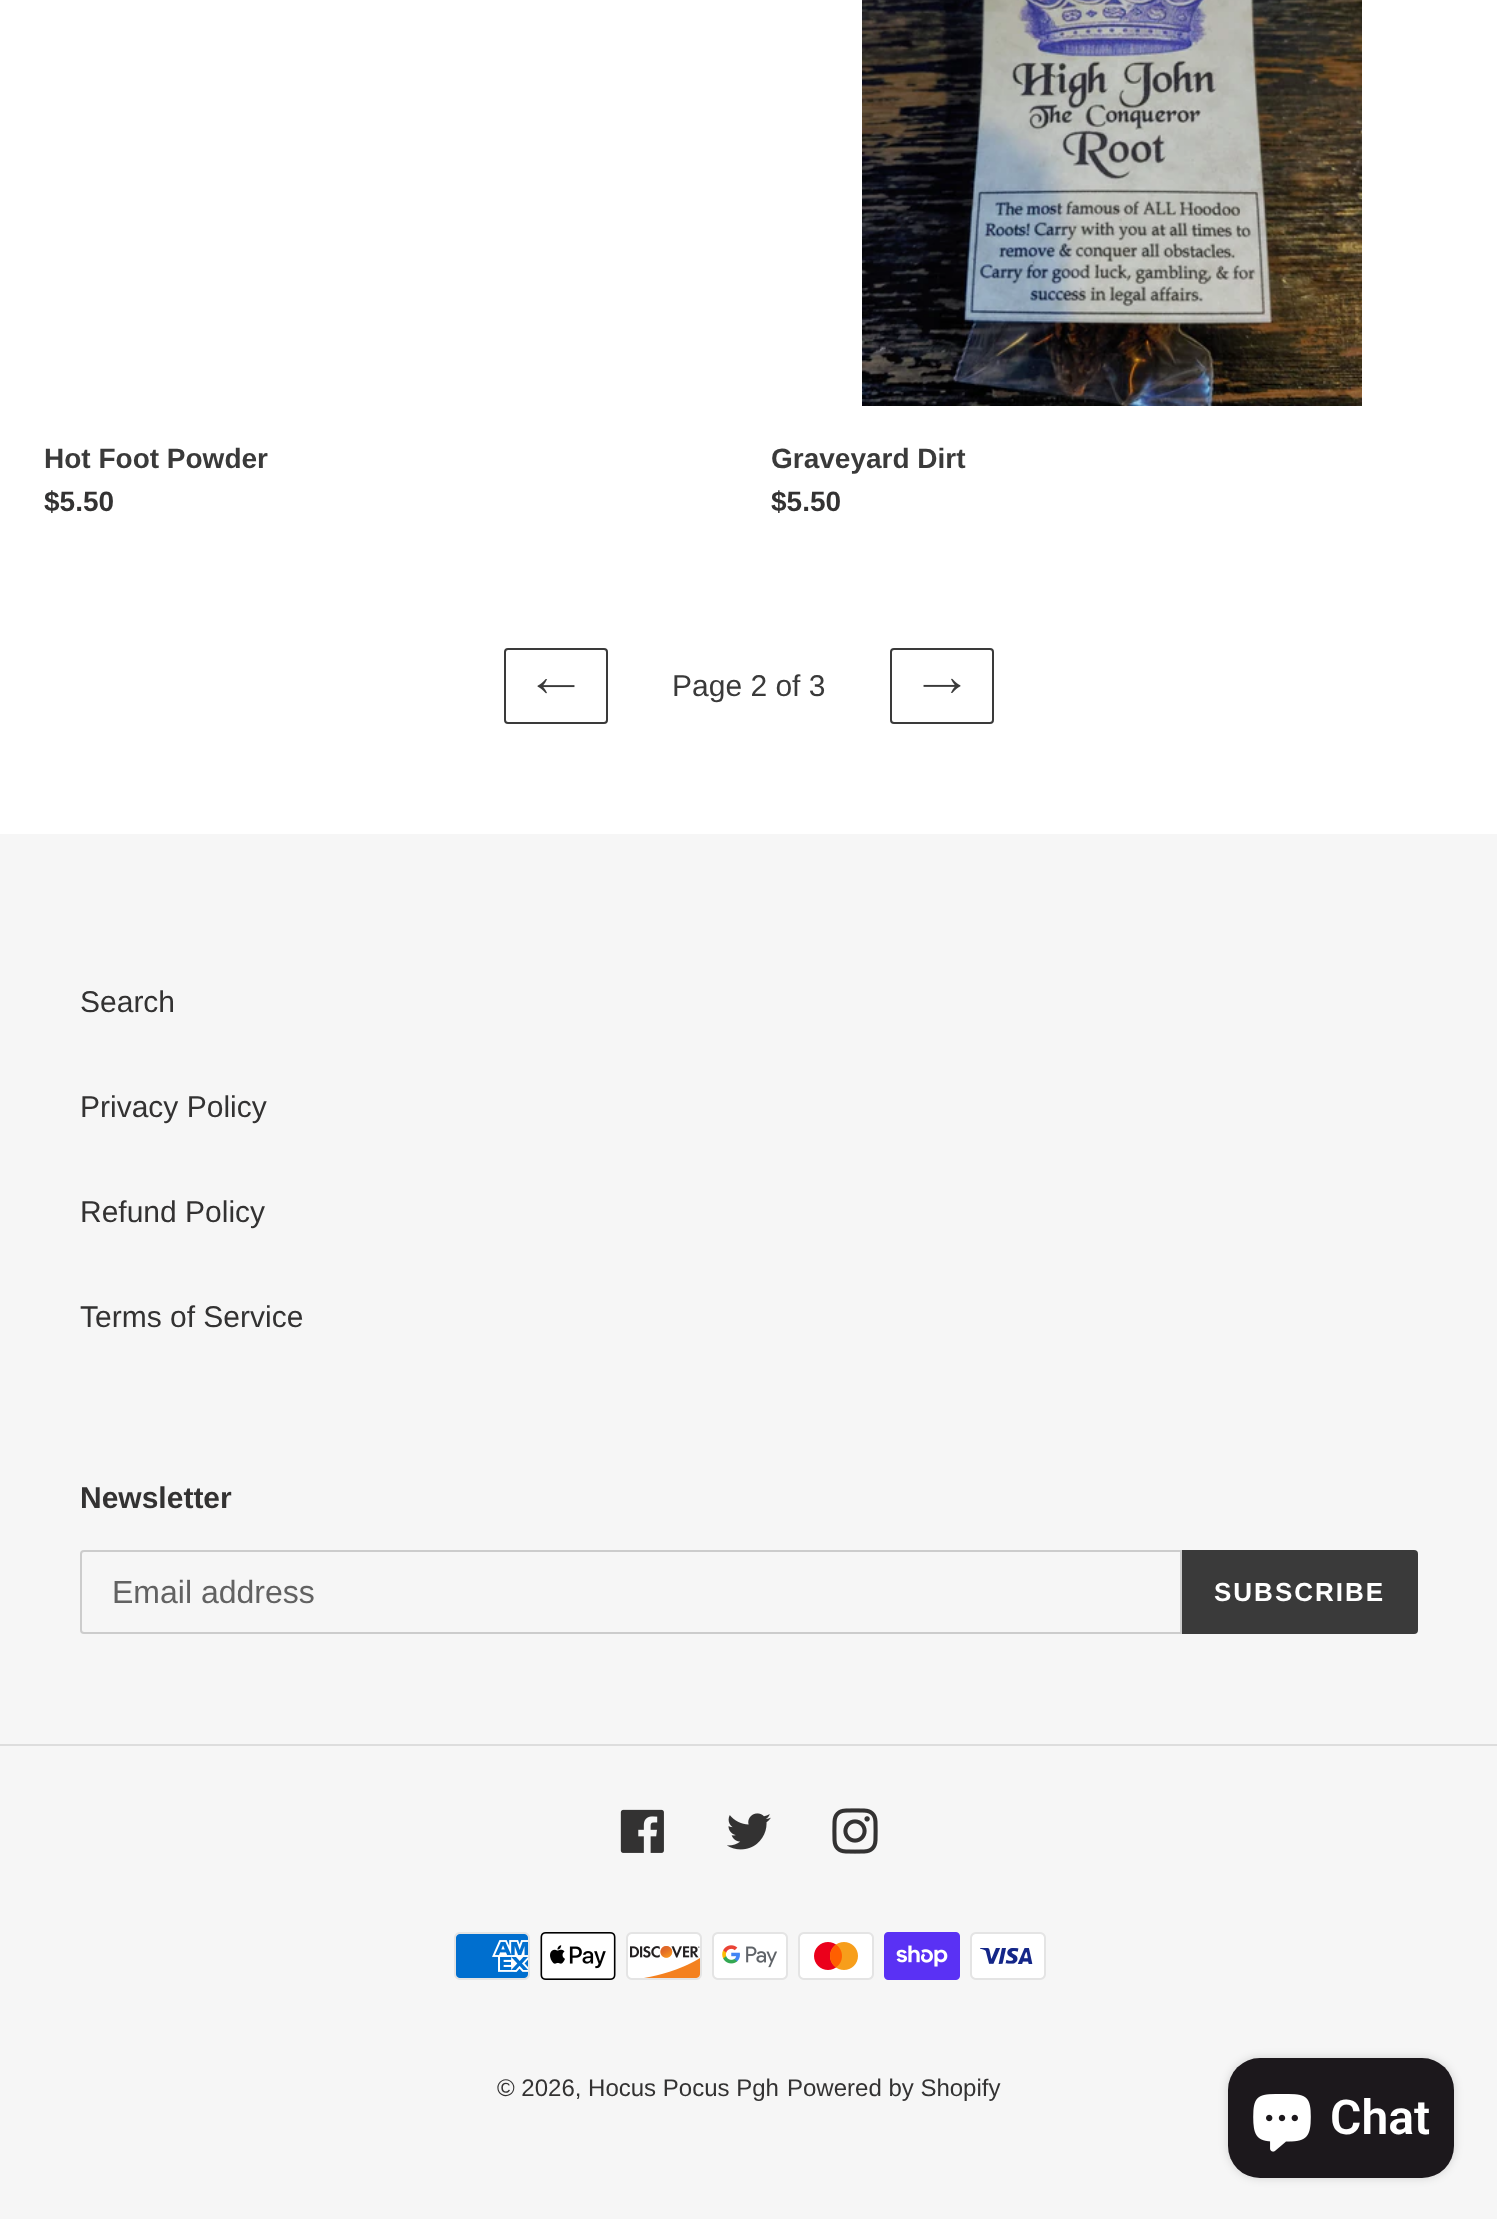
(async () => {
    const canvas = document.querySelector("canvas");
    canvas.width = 1497;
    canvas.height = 2219;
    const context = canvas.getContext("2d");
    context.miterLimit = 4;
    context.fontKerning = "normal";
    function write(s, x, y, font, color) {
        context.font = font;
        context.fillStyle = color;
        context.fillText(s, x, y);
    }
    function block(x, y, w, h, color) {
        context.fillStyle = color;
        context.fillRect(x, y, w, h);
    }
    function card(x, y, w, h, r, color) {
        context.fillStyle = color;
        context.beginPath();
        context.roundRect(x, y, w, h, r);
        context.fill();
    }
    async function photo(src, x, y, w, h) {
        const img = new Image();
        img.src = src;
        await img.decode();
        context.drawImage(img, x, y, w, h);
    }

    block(0, 0, 1497, 2219, "rgb(255, 255, 255)");
    write("Hot Foot Powder", 44, 468, "bold 28px Liberation Sans", "rgb(58, 58, 58)");
    write("$5.50", 44, 511, "bold 28px Liberation Sans", "rgb(51, 50, 50)");
    await photo("media/1.png", 862, 0, 500, 406);
    write("Graveyard Dirt", 771, 468, "bold 28px Liberation Sans", "rgb(58, 58, 58)");
    write("$5.50", 771, 511, "bold 28px Liberation Sans", "rgb(51, 50, 50)");
    context.beginPath();
    context.roundRect(505, 649, 102, 74, 3);
    context.strokeStyle = "rgb(58, 58, 58)";
    context.lineWidth = 2;
    context.stroke();
    await photo("media/2.png", 537, 679, 38, 15);
    write("Page 2 of 3", 672, 696, "30px Liberation Sans", "rgb(58, 58, 58)");
    context.beginPath();
    context.roundRect(891, 649, 102, 74, 3);
    context.stroke();
    await photo("media/3.png", 923, 678, 38, 15);
    block(0, 834, 1497, 1385, "rgb(246, 246, 246)");
    write("Search", 80, 1012, "30px Liberation Sans", "rgb(51, 50, 50)");
    write("Privacy Policy", 80, 1117, "30px Liberation Sans", "rgb(51, 50, 50)");
    write("Refund Policy", 80, 1222, "30px Liberation Sans", "rgb(51, 50, 50)");
    write("Terms of Service", 80, 1327, "30px Liberation Sans", "rgb(51, 50, 50)");
    write("Newsletter", 80, 1508, "bold 30px Liberation Sans", "rgb(51, 50, 50)");
    context.beginPath();
    context.roundRect(81, 1551, 1100, 82, [3, 0, 0, 3]);
    context.strokeStyle = "rgb(204, 204, 204)";
    context.stroke();
    write("Email address", 112, 1603, "32px Liberation Sans", "rgb(98, 98, 98)");
    context.fillStyle = "rgb(58, 58, 58)";
    context.beginPath();
    context.roundRect(1182, 1550, 236, 84, [0, 4, 4, 0]);
    context.fill();
    context.letterSpacing = "2px";
    write("SUBSCRIBE", 1214, 1601, "bold 26px Liberation Sans", "rgb(255, 255, 255)");
    block(0, 1744, 1497, 2, "rgb(221, 221, 221)");
    await photo("media/4.png", 620, 1809, 44, 44);
    await photo("media/5.png", 727, 1813, 44, 37);
    await photo("media/6.png", 832, 1808, 46, 46);
    await photo("media/7.png", 454, 1932, 76, 48);
    await photo("media/8.png", 540, 1932, 76, 48);
    await photo("media/9.png", 626, 1932, 76, 48);
    await photo("media/10.png", 712, 1932, 76, 48);
    await photo("media/11.png", 798, 1932, 76, 48);
    await photo("media/12.png", 884, 1932, 76, 48);
    await photo("media/13.png", 970, 1932, 76, 48);
    context.letterSpacing = "0px";
    write("© 2026, Hocus Pocus Pgh", 497, 2096, "24px Liberation Sans", "rgb(51, 50, 50)");
    write("Powered by Shopify", 787, 2096, "24px Liberation Sans", "rgb(51, 50, 50)");
    context.fillStyle = "rgba(0, 0, 0, 0.15)";
    context.filter = "blur(5px)";
    context.beginPath();
    context.roundRect(1228, 2058, 226, 120, 32);
    context.fill();
    context.filter = "none";
    card(1228, 2058, 226, 120, 32, "rgb(28, 24, 28)");
    await photo("media/14.png", 1253, 2094, 58, 58);
    write("Chat", 1330, 2134, "600 48px Roboto", "rgb(255, 255, 255)");
})();
